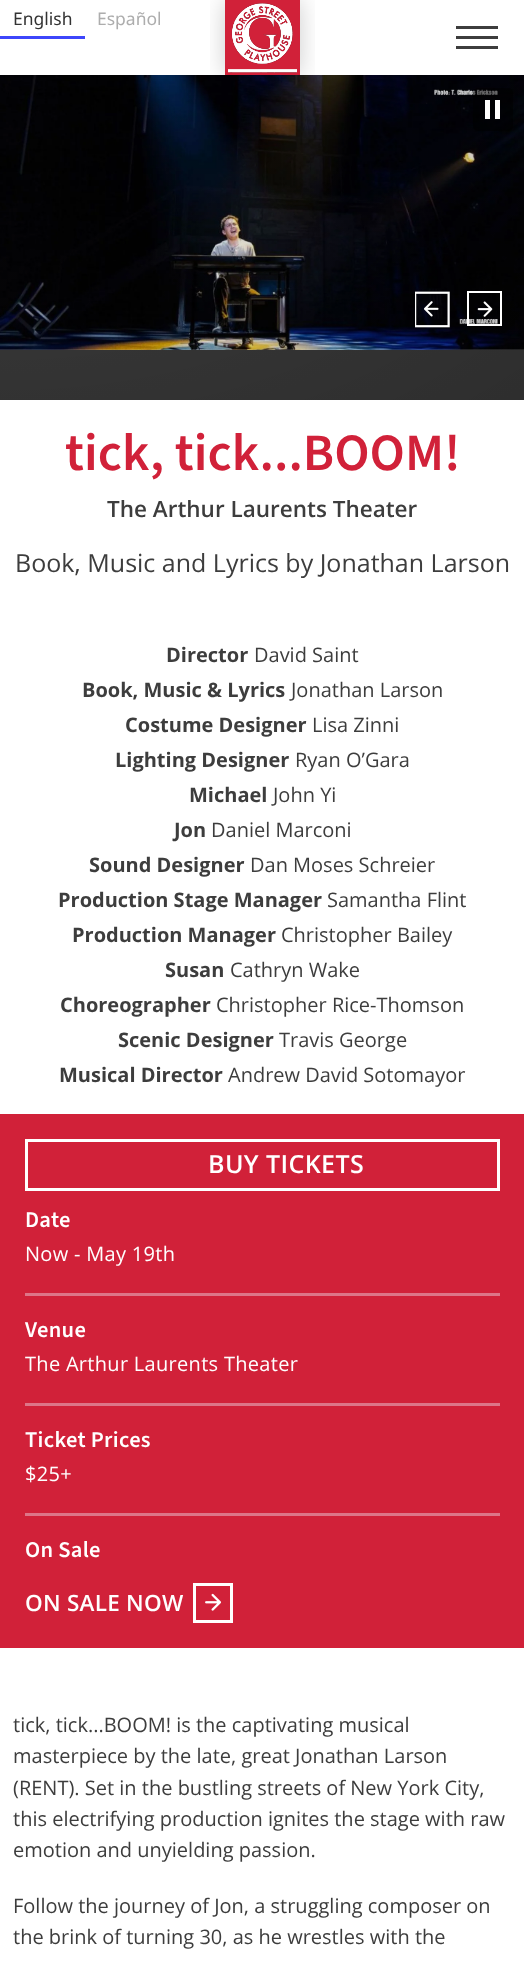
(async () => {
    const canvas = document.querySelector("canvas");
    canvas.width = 524;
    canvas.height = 1965;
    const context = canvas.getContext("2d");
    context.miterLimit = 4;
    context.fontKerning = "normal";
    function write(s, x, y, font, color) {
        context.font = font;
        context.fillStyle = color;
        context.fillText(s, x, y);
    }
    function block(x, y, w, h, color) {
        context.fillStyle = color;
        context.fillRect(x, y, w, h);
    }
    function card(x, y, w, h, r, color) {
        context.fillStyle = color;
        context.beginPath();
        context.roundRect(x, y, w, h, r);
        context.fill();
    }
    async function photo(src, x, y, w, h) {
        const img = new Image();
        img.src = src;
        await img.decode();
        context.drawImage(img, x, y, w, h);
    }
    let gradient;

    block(0, 0, 524, 1965, "rgb(255, 255, 255)");
    write("English", 13, 25, "17.5px Noto Sans", "rgb(51, 51, 51)");
    block(0, 36, 85, 3, "rgb(61, 70, 251)");
    write("Español", 97, 25, "17.5px Noto Sans", "rgb(173, 173, 173)");
    await photo("media/2.png", 0, 75, 524, 275);
    block(0, 350, 524, 50, "rgb(61, 61, 61)");
    gradient = context.createRadialGradient(0, 120.98, 0, 0, 120.98, 742);
    gradient.addColorStop(0, "rgba(0, 0, 0, 0)");
    gradient.addColorStop(1, "rgba(0, 0, 0, 0.25)");
    context.fillStyle = gradient;
    context.beginPath();
    context.rect(0, 75, 524, 325);
    context.save();
    context.clip();
    context.scale(1, 460 / 742);
    context.fillRect(0, 0, 524, 3170);
    context.restore();
    await photo("media/1.png", 210, 0, 105, 76);
    block(456, 26, 42, 3, "rgb(61, 61, 61)");
    block(456, 36, 42, 3, "rgb(61, 61, 61)");
    block(456, 46, 42, 3, "rgb(61, 61, 61)");
    await photo("media/3.png", 415, 291, 35, 37);
    await photo("media/4.png", 467, 291, 35, 35);
    card(473, 88, 40, 43, 5, "rgba(0, 0, 0, 0.5)");
    block(495, 100, 5, 19, "rgb(255, 255, 255)");
    block(485, 100, 5, 19, "rgb(255, 255, 255)");
    write("tick, tick...BOOM!", 65, 470, "600 52.5px 'Source Sans 3'", "rgb(209, 33, 57)");
    write("The Arthur Laurents Theater", 107, 517, "600 22.5px Open Sans", "rgb(61, 61, 61)");
    write("Book, Music and Lyrics by Jonathan Larson", 15, 572, "25px Open Sans", "rgb(61, 61, 61)");
    write("Director", 166, 662, "bold 20px Open Sans", "rgb(61, 61, 61)");
    write("David Saint", 254, 662, "20px Open Sans", "rgb(61, 61, 61)");
    write("Book, Music & Lyrics", 82, 697, "bold 20px Open Sans", "rgb(61, 61, 61)");
    write("Jonathan Larson", 291, 697, "20px Open Sans", "rgb(61, 61, 61)");
    write("Costume Designer", 125, 732, "bold 20px Open Sans", "rgb(61, 61, 61)");
    write("Lisa Zinni", 312, 732, "20px Open Sans", "rgb(61, 61, 61)");
    write("Lighting Designer", 115, 767, "bold 20px Open Sans", "rgb(61, 61, 61)");
    write("Ryan O’Gara", 295, 767, "20px Open Sans", "rgb(61, 61, 61)");
    write("Michael", 189, 802, "bold 20px Open Sans", "rgb(61, 61, 61)");
    write("John Yi", 273, 802, "20px Open Sans", "rgb(61, 61, 61)");
    write("Jon", 174, 837, "bold 20px Open Sans", "rgb(61, 61, 61)");
    write("Daniel Marconi", 211, 837, "20px Open Sans", "rgb(61, 61, 61)");
    write("Sound Designer", 89, 872, "bold 20px Open Sans", "rgb(61, 61, 61)");
    write("Dan Moses Schreier", 250, 872, "20px Open Sans", "rgb(61, 61, 61)");
    write("Production Stage Manager", 58, 907, "bold 20px Open Sans", "rgb(61, 61, 61)");
    write("Samantha Flint", 327, 907, "20px Open Sans", "rgb(61, 61, 61)");
    write("Production Manager", 72, 942, "bold 20px Open Sans", "rgb(61, 61, 61)");
    write("Christopher Bailey", 281, 942, "20px Open Sans", "rgb(61, 61, 61)");
    write("Susan", 165, 977, "bold 20px Open Sans", "rgb(61, 61, 61)");
    write("Cathryn Wake", 230, 977, "20px Open Sans", "rgb(61, 61, 61)");
    write("Choreographer", 60, 1012, "bold 20px Open Sans", "rgb(61, 61, 61)");
    write("Christopher Rice-Thomson", 216, 1012, "20px Open Sans", "rgb(61, 61, 61)");
    write("Scenic Designer", 118, 1047, "bold 20px Open Sans", "rgb(61, 61, 61)");
    write("Travis George", 279, 1047, "20px Open Sans", "rgb(61, 61, 61)");
    write("Musical Director", 59, 1082, "bold 20px Open Sans", "rgb(61, 61, 61)");
    write("Andrew David Sotomayor", 228, 1082, "20px Open Sans", "rgb(61, 61, 61)");
    block(0, 1114, 524, 534, "rgb(209, 33, 57)");
    context.strokeStyle = "rgb(255, 255, 255)";
    context.lineWidth = 3;
    context.strokeRect(26.5, 1140.5, 472, 49);
    context.letterSpacing = "0.4px";
    write("BUY TICKETS", 208, 1173, "600 25px Open Sans", "rgb(255, 255, 255)");
    block(25, 1293, 475, 3, "rgb(221, 117, 136)");
    context.letterSpacing = "0.3px";
    write("Date", 25, 1227, "600 22.5px 'Source Sans 3'", "rgb(255, 255, 255)");
    write("Now - May 19th", 25, 1261, "20px Open Sans", "rgb(255, 255, 255)");
    block(25, 1403, 475, 3, "rgb(221, 117, 136)");
    write("Venue", 25, 1337, "600 22.5px 'Source Sans 3'", "rgb(255, 255, 255)");
    write("The Arthur Laurents Theater", 25, 1371, "20px Open Sans", "rgb(255, 255, 255)");
    block(25, 1513, 475, 3, "rgb(221, 117, 136)");
    write("Ticket Prices", 25, 1447, "600 22.5px 'Source Sans 3'", "rgb(255, 255, 255)");
    write("$25+", 25, 1481, "20px Open Sans", "rgb(255, 255, 255)");
    write("On Sale", 25, 1557, "600 22.5px 'Source Sans 3'", "rgb(255, 255, 255)");
    await photo("media/5.png", 205, 1593, 16, 18);
    context.strokeRect(194.5, 1584.5, 37, 37);
    context.letterSpacing = "0.25px";
    write("ON SALE NOW", 25, 1611, "600 22.5px Open Sans", "rgb(255, 255, 255)");
    context.letterSpacing = "0px";
    write("tick, tick...BOOM! is the captivating musical", 13, 1732, "20px Open Sans", "rgb(61, 61, 61)");
    write("masterpiece by the late, great Jonathan Larson", 13, 1763, "20px Open Sans", "rgb(61, 61, 61)");
    write("(RENT). Set in the bustling streets of New York City,", 13, 1795, "20px Open Sans", "rgb(61, 61, 61)");
    write("this electrifying production ignites the stage with raw", 13, 1826, "20px Open Sans", "rgb(61, 61, 61)");
    write("emotion and unyielding passion.", 13, 1857, "20px Open Sans", "rgb(61, 61, 61)");
    write("Follow the journey of Jon, a struggling composer on", 13, 1913, "20px Open Sans", "rgb(61, 61, 61)");
    write("the brink of turning 30, as he wrestles with the", 13, 1944, "20px Open Sans", "rgb(61, 61, 61)");
})();
